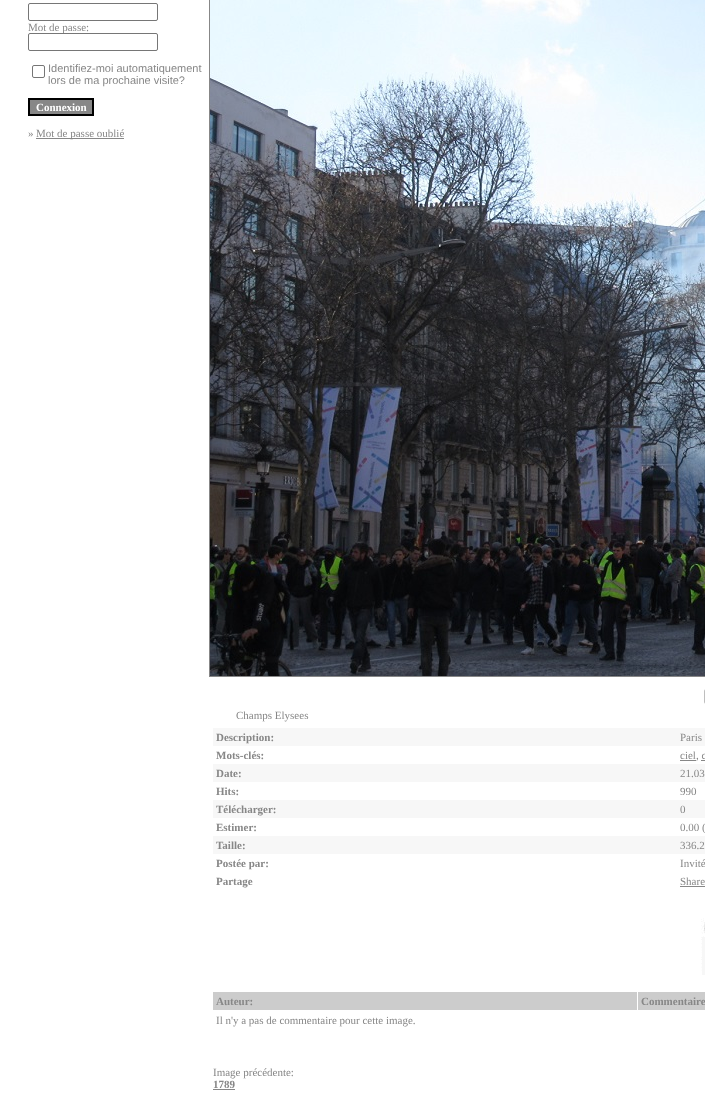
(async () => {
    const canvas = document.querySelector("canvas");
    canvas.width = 705;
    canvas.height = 1101;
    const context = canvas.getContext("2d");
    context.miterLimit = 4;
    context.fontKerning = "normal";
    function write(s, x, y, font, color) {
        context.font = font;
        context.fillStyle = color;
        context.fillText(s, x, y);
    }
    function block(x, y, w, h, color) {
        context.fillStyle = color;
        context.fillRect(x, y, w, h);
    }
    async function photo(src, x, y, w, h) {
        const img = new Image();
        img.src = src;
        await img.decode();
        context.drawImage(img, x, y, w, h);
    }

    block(0, 0, 705, 1101, "rgb(255, 255, 255)");
    context.beginPath();
    context.roundRect(28.5, 3.5, 129, 17, 1.5);
    context.strokeStyle = "rgb(118, 118, 118)";
    context.stroke();
    write("Mot de passe:", 28, 31, "11px Liberation Serif", "rgb(135, 135, 135)");
    context.fillStyle = "rgb(255, 255, 255)";
    context.beginPath();
    context.roundRect(28.5, 33.5, 129, 17, 1.5);
    context.fill();
    context.stroke();
    context.beginPath();
    context.roundRect(32.5, 65.5, 12, 12, 1.5);
    context.stroke();
    write("Identifiez-moi automatiquement", 48, 72, "11px Liberation Sans", "rgb(135, 135, 135)");
    write("lors de ma prochaine visite?", 48, 84, "11px Liberation Sans", "rgb(135, 135, 135)");
    context.beginPath();
    context.rect(29, 99, 64, 16);
    context.fill();
    context.strokeStyle = "rgb(0, 0, 0)";
    context.lineWidth = 2;
    context.stroke();
    write("Connexion", 36, 111, "bold 11px Liberation Serif", "rgb(255, 255, 255)");
    write("»", 28, 137, "11px Liberation Serif", "rgb(135, 135, 135)");
    block(36, 138, 88, 1, "rgb(135, 135, 135)");
    write("Mot de passe oublié", 36, 137, "11px Liberation Serif", "rgb(135, 135, 135)");
    context.strokeStyle = "rgb(135, 135, 135)";
    context.lineWidth = 1;
    context.strokeRect(209.5, -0.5, 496, 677);
    await photo("media/1.png", 210, 0, 495, 676);
    await photo("media/2.png", 704, 689, 1, 15);
    write("Champs Elysees", 236, 719, "11px Liberation Serif", "rgb(135, 135, 135)");
    block(213, 728, 492, 18, "rgb(247, 247, 247)");
    write("Description:", 216, 741, "bold 11px Liberation Serif", "rgb(135, 135, 135)");
    write("Paris", 680, 741, "11px Liberation Serif", "rgb(135, 135, 135)");
    write("Mots-clés:", 216, 759, "bold 11px Liberation Serif", "rgb(135, 135, 135)");
    block(680, 760, 16, 1, "rgb(135, 135, 135)");
    write("ciel, c", 680, 759, "11px Liberation Serif", "rgb(135, 135, 135)");
    block(701, 760, 4, 1, "rgb(135, 135, 135)");
    block(213, 764, 492, 18, "rgb(247, 247, 247)");
    write("Date:", 216, 777, "bold 11px Liberation Serif", "rgb(135, 135, 135)");
    write("21.03", 680, 777, "11px Liberation Serif", "rgb(135, 135, 135)");
    write("Hits:", 216, 795, "bold 11px Liberation Serif", "rgb(135, 135, 135)");
    write("990", 680, 795, "11px Liberation Serif", "rgb(135, 135, 135)");
    block(213, 800, 492, 18, "rgb(247, 247, 247)");
    write("Télécharger:", 216, 813, "bold 11px Liberation Serif", "rgb(135, 135, 135)");
    write("0", 680, 813, "11px Liberation Serif", "rgb(135, 135, 135)");
    write("Estimer:", 216, 831, "bold 11px Liberation Serif", "rgb(135, 135, 135)");
    write("0.00 (", 680, 831, "11px Liberation Serif", "rgb(135, 135, 135)");
    block(213, 836, 492, 18, "rgb(247, 247, 247)");
    write("Taille:", 216, 849, "bold 11px Liberation Serif", "rgb(135, 135, 135)");
    write("336.2", 680, 849, "11px Liberation Serif", "rgb(135, 135, 135)");
    write("Postée par:", 216, 867, "bold 11px Liberation Serif", "rgb(135, 135, 135)");
    write("Invité", 680, 867, "11px Liberation Serif", "rgb(135, 135, 135)");
    write("Partage", 216, 885, "bold 11px Liberation Serif", "rgb(135, 135, 135)");
    write("Share", 680, 885, "11px Liberation Serif", "rgb(135, 135, 135)");
    block(680, 886, 25, 1, "rgb(135, 135, 135)");
    await photo("media/3.png", 701, 918, 4, 16);
    await photo("media/4.png", 701, 936, 4, 36);
    block(702, 937, 3, 38, "rgb(247, 247, 247)");
    block(213, 992, 424, 18, "rgb(204, 204, 204)");
    write("Auteur:", 216, 1005, "bold 11px Liberation Serif", "rgb(135, 135, 135)");
    block(638, 992, 67, 18, "rgb(204, 204, 204)");
    write("Commentaire", 641, 1005, "bold 11px Liberation Serif", "rgb(135, 135, 135)");
    write("Il n'y a pas de commentaire pour cette image.", 216, 1024, "11px Liberation Serif", "rgb(135, 135, 135)");
    write("Image précédente:", 213, 1076, "11px Liberation Serif", "rgb(135, 135, 135)");
    write("1789", 213, 1088, "bold 11px Liberation Serif", "rgb(135, 135, 135)");
    block(213, 1089, 22, 1, "rgb(135, 135, 135)");
})();
